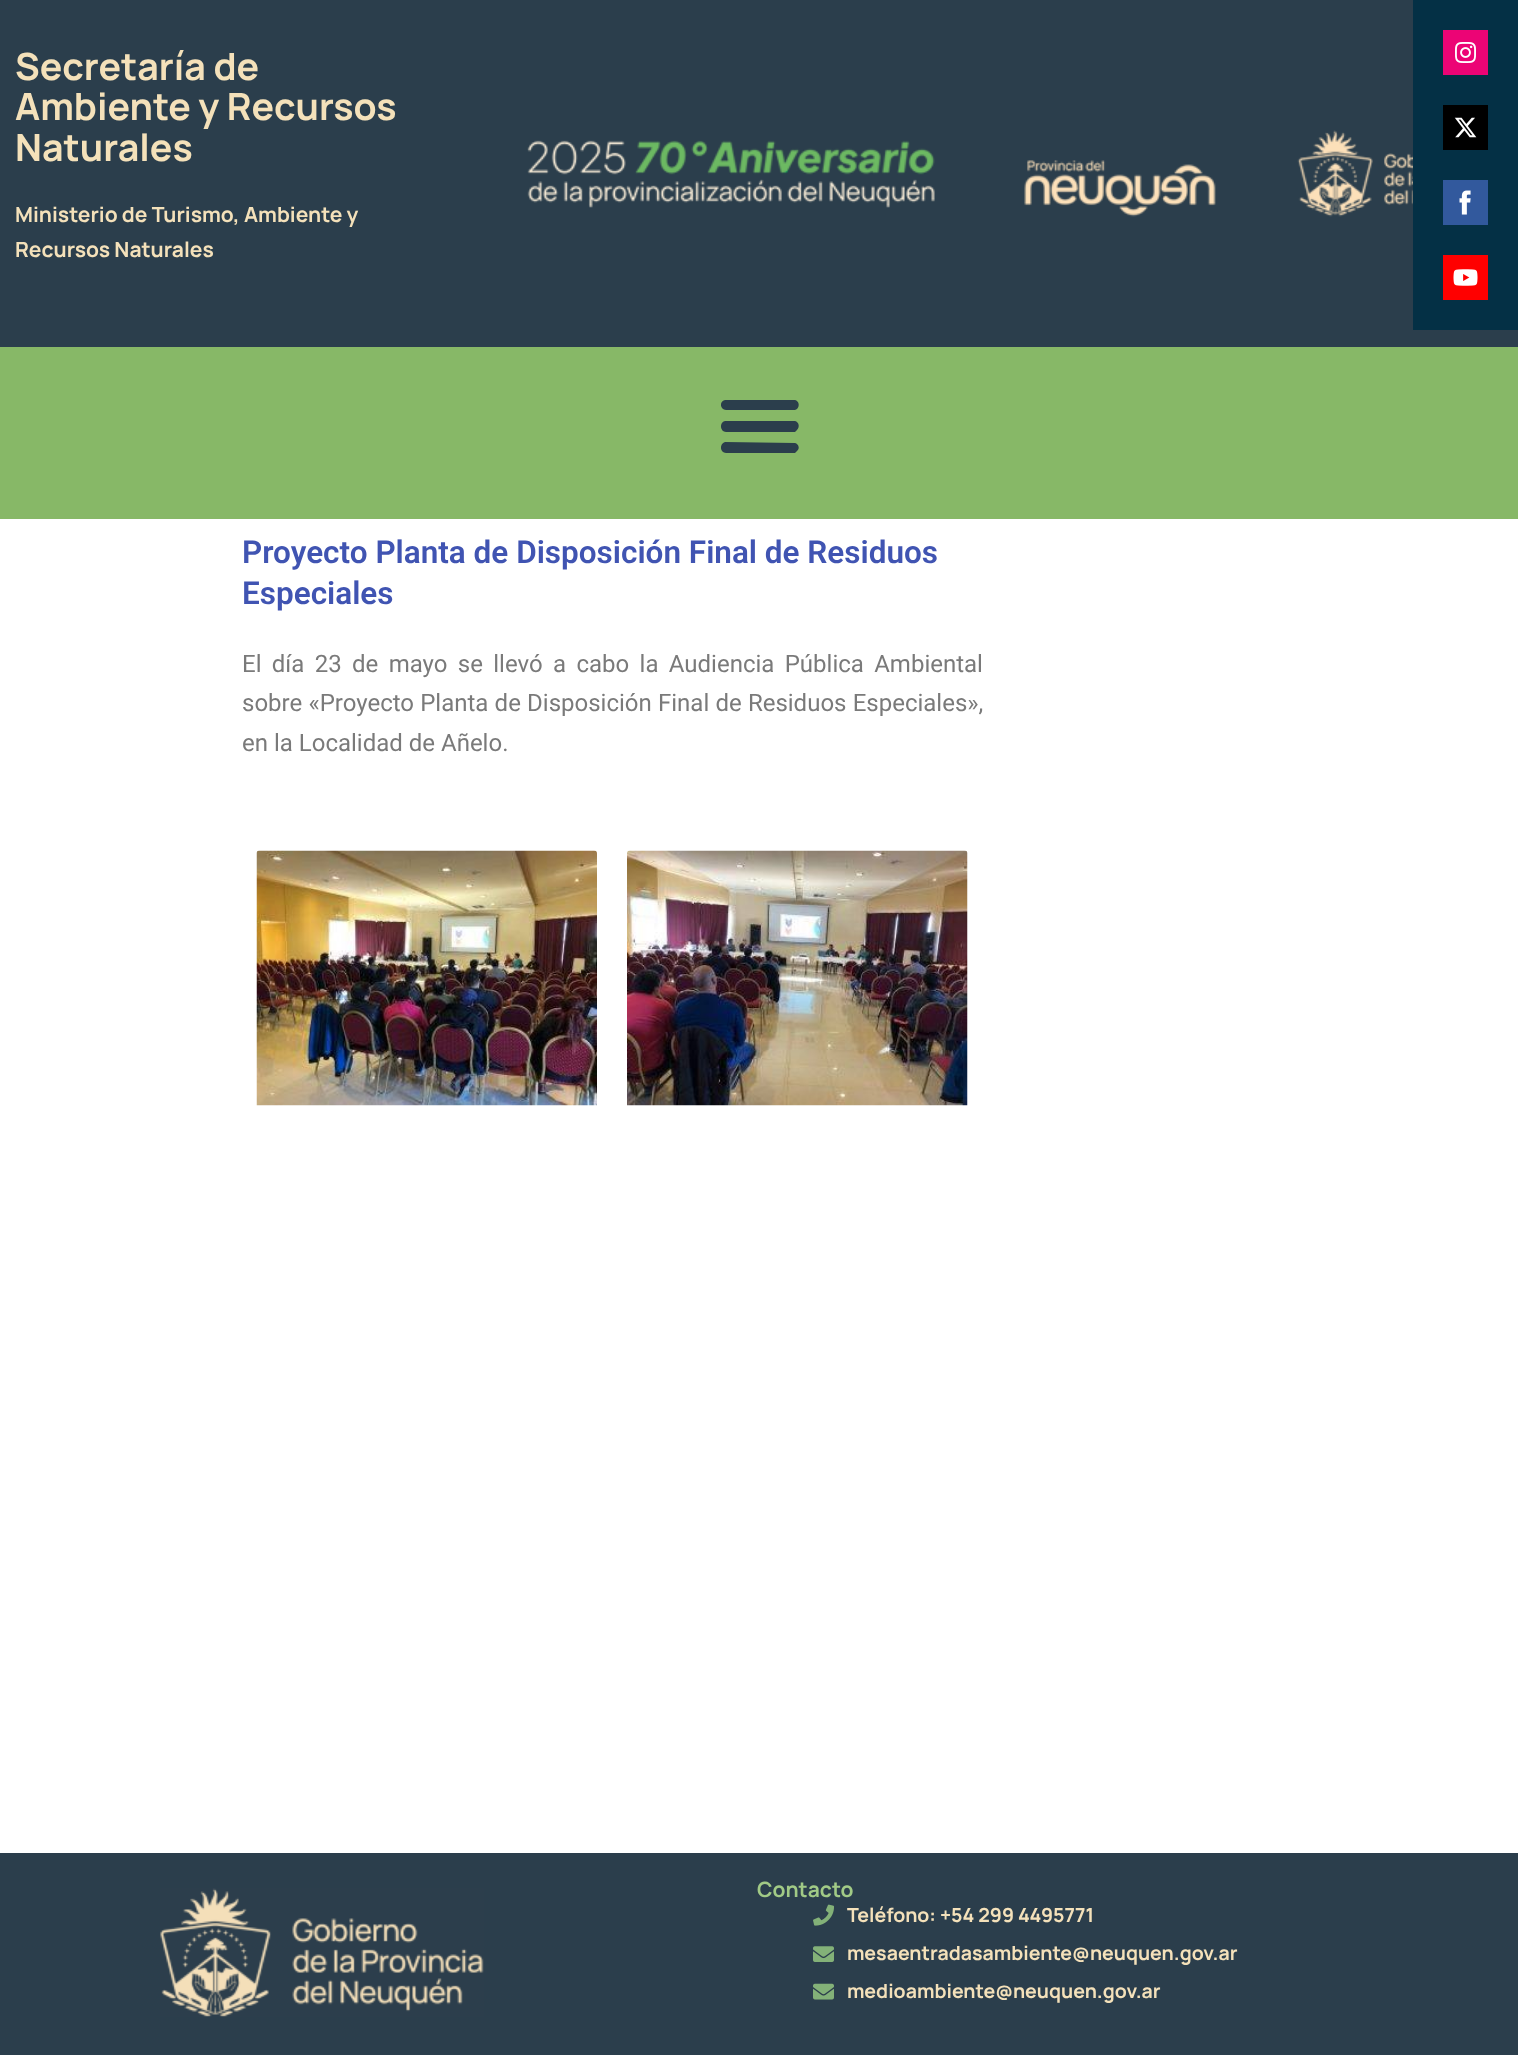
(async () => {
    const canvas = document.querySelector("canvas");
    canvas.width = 1518;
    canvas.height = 2055;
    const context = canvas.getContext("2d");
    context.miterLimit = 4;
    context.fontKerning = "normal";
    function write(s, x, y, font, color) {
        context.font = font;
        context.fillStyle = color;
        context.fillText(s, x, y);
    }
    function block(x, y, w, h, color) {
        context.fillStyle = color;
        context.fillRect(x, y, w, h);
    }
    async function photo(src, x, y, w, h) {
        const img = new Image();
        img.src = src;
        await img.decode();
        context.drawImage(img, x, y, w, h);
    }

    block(0, 0, 1518, 2055, "rgb(255, 255, 255)");
    block(0, 0, 1518, 347, "rgb(43, 62, 76)");
    write("Secretaría de", 15, 80, "bold 37.5px Manrope", "rgb(244, 225, 186)");
    write("Ambiente y Recursos", 15, 120, "bold 37.5px Manrope", "rgb(244, 225, 186)");
    write("Naturales", 15, 161, "bold 37.5px Manrope", "rgb(244, 225, 186)");
    write("Ministerio de Turismo, Ambiente y", 15, 222, "bold 21px 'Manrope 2'", "rgb(244, 225, 186)");
    write("Recursos Naturales", 15, 257, "bold 21px 'Manrope 2'", "rgb(244, 225, 186)");
    await photo("media/1.png", 527, 140, 408, 68);
    await photo("media/2.png", 1024, 130, 389, 87);
    block(0, 347, 1518, 172, "rgb(135, 184, 103)");
    context.fillStyle = "rgb(43, 62, 76)";
    context.beginPath();
    context.moveTo(726, 410);
    context.lineTo(795, 410);
    context.lineTo(797, 409);
    context.bezierCurveTo(800, 406, 799, 401, 795, 400);
    context.lineTo(725, 400);
    context.bezierCurveTo(719, 401, 720, 410, 726, 410);
    context.closePath();
    context.moveTo(726, 432);
    context.lineTo(795, 432);
    context.lineTo(797, 430);
    context.bezierCurveTo(800, 427, 799, 422, 795, 421);
    context.lineTo(725, 421);
    context.bezierCurveTo(719, 422, 720, 432, 726, 432);
    context.closePath();
    context.moveTo(726, 453);
    context.lineTo(795, 453);
    context.lineTo(797, 451);
    context.bezierCurveTo(800, 449, 799, 444, 795, 443);
    context.lineTo(725, 442);
    context.bezierCurveTo(719, 444, 720, 453, 726, 453);
    context.closePath();
    context.fill();
    write("Proyecto Planta de Disposición Final de Residuos", 242, 563, "600 31.5px Roboto", "rgb(64, 84, 178)");
    write("Especiales", 242, 604, "600 31.5px Roboto", "rgb(64, 84, 178)");
    context.wordSpacing = "4.4px";
    write("El día 23 de mayo se llevó a cabo la Audiencia Pública Ambiental", 242, 672, "24px Roboto", "rgb(122, 122, 122)");
    context.wordSpacing = "0.25px";
    write("sobre «Proyecto Planta de Disposición Final de Residuos Especiales»,", 242, 711, "24px Roboto", "rgb(122, 122, 122)");
    context.wordSpacing = "0px";
    write("en la Localidad de Añelo.", 242, 751, "24px Roboto", "rgb(122, 122, 122)");
    await photo("media/3.png", 256, 850, 341, 256);
    await photo("media/4.png", 627, 850, 341, 256);
    block(0, 1853, 1518, 202, "rgb(43, 62, 76)");
    await photo("media/5.png", 160, 1888, 324, 129);
    write("Contacto", 757, 1897, "bold 21px Manrope", "rgb(161, 202, 134)");
    await photo("media/6.png", 813, 1904, 21, 22);
    write("Teléfono: +54 299 4495771", 847, 1922, "bold 19.5px 'Manrope 2'", "rgb(244, 225, 186)");
    await photo("media/7.png", 813, 1946, 21, 16);
    write("mesaentradasambiente@neuquen.gov.ar", 847, 1960, "bold 19.5px 'Manrope 2'", "rgb(244, 225, 186)");
    await photo("media/8.png", 813, 1983, 21, 17);
    write("medioambiente@neuquen.gov.ar", 847, 1998, "bold 19.5px 'Manrope 2'", "rgb(244, 225, 186)");
    block(1413, 0, 105, 330, "rgb(4, 48, 69)");
    block(1443, 30, 45, 45, "rgb(236, 4, 117)");
    await photo("media/9.png", 1455, 42, 21, 21);
    block(1443, 105, 45, 45, "rgb(0, 0, 0)");
    await photo("media/10.png", 1454, 117, 23, 21);
    block(1443, 180, 45, 45, "rgb(50, 89, 157)");
    await photo("media/11.png", 1459, 190, 12, 25);
    block(1443, 255, 45, 45, "rgb(255, 0, 0)");
    await photo("media/12.png", 1453, 269, 25, 17);
})();
